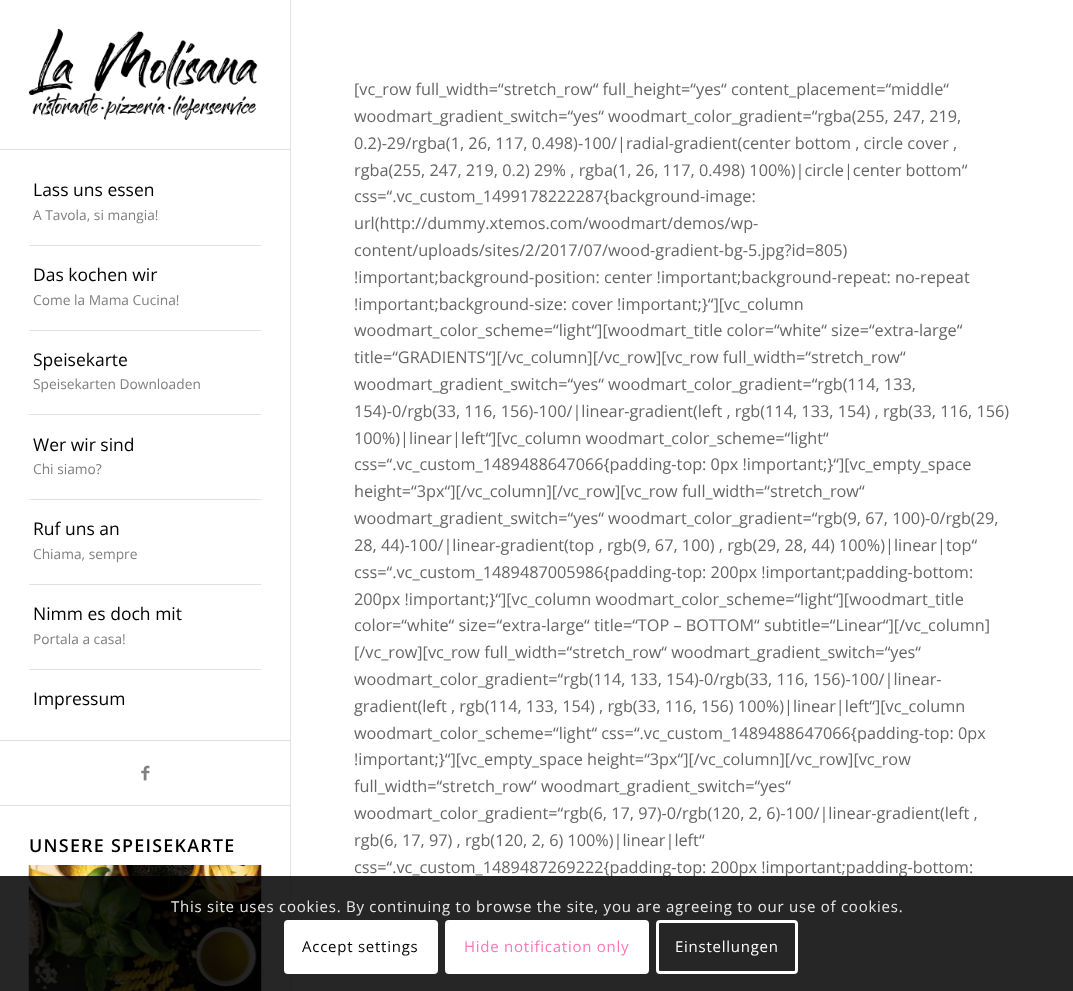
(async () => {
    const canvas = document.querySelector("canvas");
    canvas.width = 1073;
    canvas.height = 991;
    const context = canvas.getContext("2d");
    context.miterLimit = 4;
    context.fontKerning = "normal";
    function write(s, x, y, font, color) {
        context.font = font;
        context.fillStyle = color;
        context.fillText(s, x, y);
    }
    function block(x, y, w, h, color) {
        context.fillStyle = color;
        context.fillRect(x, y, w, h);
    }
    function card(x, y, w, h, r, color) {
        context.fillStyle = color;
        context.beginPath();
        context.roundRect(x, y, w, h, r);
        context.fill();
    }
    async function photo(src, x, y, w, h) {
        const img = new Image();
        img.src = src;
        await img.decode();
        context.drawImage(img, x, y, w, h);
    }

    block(0, 0, 1073, 991, "rgb(255, 255, 255)");
    block(0, 149, 290, 1, "rgb(225, 225, 225)");
    await photo("media/1.png", 28, 28, 230, 92);
    block(29, 245, 232, 1, "rgb(225, 225, 225)");
    write("Lass uns essen", 33, 196, "17.5px Open Sans", "rgb(0, 0, 0)");
    write("A Tavola, si mangia!", 33, 220, "13.75px Open Sans", "rgb(128, 128, 128)");
    block(29, 330, 232, 1, "rgb(225, 225, 225)");
    write("Das kochen wir", 33, 281, "17.5px Open Sans", "rgb(0, 0, 0)");
    write("Come la Mama Cucina!", 33, 305, "13.75px Open Sans", "rgb(128, 128, 128)");
    block(29, 414, 232, 1, "rgb(225, 225, 225)");
    write("Speisekarte", 33, 366, "17.5px Open Sans", "rgb(0, 0, 0)");
    write("Speisekarten Downloaden", 33, 389, "13.75px Open Sans", "rgb(128, 128, 128)");
    block(29, 499, 232, 1, "rgb(225, 225, 225)");
    write("Wer wir sind", 33, 451, "17.5px Open Sans", "rgb(0, 0, 0)");
    write("Chi siamo?", 33, 474, "13.75px Open Sans", "rgb(128, 128, 128)");
    block(29, 584, 232, 1, "rgb(225, 225, 225)");
    write("Ruf uns an", 33, 535, "17.5px Open Sans", "rgb(0, 0, 0)");
    write("Chiama, sempre", 33, 559, "13.75px Open Sans", "rgb(128, 128, 128)");
    block(29, 669, 232, 1, "rgb(225, 225, 225)");
    write("Nimm es doch mit", 33, 620, "17.5px Open Sans", "rgb(0, 0, 0)");
    write("Portala a casa!", 33, 644, "13.75px Open Sans", "rgb(128, 128, 128)");
    write("Impressum", 33, 705, "17.5px Open Sans", "rgb(0, 0, 0)");
    block(0, 740, 290, 1, "rgb(225, 225, 225)");
    await photo("media/2.png", 141, 765, 9, 16);
    block(0, 805, 290, 1, "rgb(225, 225, 225)");
    context.letterSpacing = "1.25px";
    write("UNSERE SPEISEKARTE", 29, 852, "600 17.9px Open Sans", "rgb(0, 0, 0)");
    await photo("media/3.png", 28, 865, 234, 126);
    block(290, 0, 1, 991, "rgb(225, 225, 225)");
    context.letterSpacing = "0px";
    write("[vc_row full_width=“stretch_row“ full_height=“yes“ content_placement=“middle“", 354, 95, "16.25px Open Sans", "rgb(102, 102, 102)");
    write("woodmart_gradient_switch=“yes“ woodmart_color_gradient=“rgba(255, 247, 219,", 354, 122, "16.25px Open Sans", "rgb(102, 102, 102)");
    write("0.2)-29/rgba(1, 26, 117, 0.498)-100/|radial-gradient(center bottom , circle cover ,", 354, 149, "16.25px Open Sans", "rgb(102, 102, 102)");
    write("rgba(255, 247, 219, 0.2) 29% , rgba(1, 26, 117, 0.498) 100%)|circle|center bottom“", 354, 176, "16.25px Open Sans", "rgb(102, 102, 102)");
    write("css=“.vc_custom_1499178222287{background-image:", 354, 202, "16.25px Open Sans", "rgb(102, 102, 102)");
    write("url(http://dummy.xtemos.com/woodmart/demos/wp-", 354, 229, "16.25px Open Sans", "rgb(102, 102, 102)");
    write("content/uploads/sites/2/2017/07/wood-gradient-bg-5.jpg?id=805)", 354, 256, "16.25px Open Sans", "rgb(102, 102, 102)");
    write("!important;background-position: center !important;background-repeat: no-repeat", 354, 283, "16.25px Open Sans", "rgb(102, 102, 102)");
    write("!important;background-size: cover !important;}“][vc_column", 354, 310, "16.25px Open Sans", "rgb(102, 102, 102)");
    write("woodmart_color_scheme=“light“][woodmart_title color=“white“ size=“extra-large“", 354, 336, "16.25px Open Sans", "rgb(102, 102, 102)");
    write("title=“GRADIENTS“][/vc_column][/vc_row][vc_row full_width=“stretch_row“", 354, 363, "16.25px Open Sans", "rgb(102, 102, 102)");
    write("woodmart_gradient_switch=“yes“ woodmart_color_gradient=“rgb(114, 133,", 354, 390, "16.25px Open Sans", "rgb(102, 102, 102)");
    write("154)-0/rgb(33, 116, 156)-100/|linear-gradient(left , rgb(114, 133, 154) , rgb(33, 116, 156)", 354, 417, "16.25px Open Sans", "rgb(102, 102, 102)");
    write("100%)|linear|left“][vc_column woodmart_color_scheme=“light“", 354, 444, "16.25px Open Sans", "rgb(102, 102, 102)");
    write("css=“.vc_custom_1489488647066{padding-top: 0px !important;}“][vc_empty_space", 354, 470, "16.25px Open Sans", "rgb(102, 102, 102)");
    write("height=“3px“][/vc_column][/vc_row][vc_row full_width=“stretch_row“", 354, 497, "16.25px Open Sans", "rgb(102, 102, 102)");
    write("woodmart_gradient_switch=“yes“ woodmart_color_gradient=“rgb(9, 67, 100)-0/rgb(29,", 354, 524, "16.25px Open Sans", "rgb(102, 102, 102)");
    write("28, 44)-100/|linear-gradient(top , rgb(9, 67, 100) , rgb(29, 28, 44) 100%)|linear|top“", 354, 551, "16.25px Open Sans", "rgb(102, 102, 102)");
    write("css=“.vc_custom_1489487005986{padding-top: 200px !important;padding-bottom:", 354, 578, "16.25px Open Sans", "rgb(102, 102, 102)");
    write("200px !important;}“][vc_column woodmart_color_scheme=“light“][woodmart_title", 354, 605, "16.25px Open Sans", "rgb(102, 102, 102)");
    write("color=“white“ size=“extra-large“ title=“TOP – BOTTOM“ subtitle=“Linear“][/vc_column]", 354, 631, "16.25px Open Sans", "rgb(102, 102, 102)");
    write("[/vc_row][vc_row full_width=“stretch_row“ woodmart_gradient_switch=“yes“", 354, 658, "16.25px Open Sans", "rgb(102, 102, 102)");
    write("woodmart_color_gradient=“rgb(114, 133, 154)-0/rgb(33, 116, 156)-100/|linear-", 354, 685, "16.25px Open Sans", "rgb(102, 102, 102)");
    write("gradient(left , rgb(114, 133, 154) , rgb(33, 116, 156) 100%)|linear|left“][vc_column", 354, 712, "16.25px Open Sans", "rgb(102, 102, 102)");
    write("woodmart_color_scheme=“light“ css=“.vc_custom_1489488647066{padding-top: 0px", 354, 739, "16.25px Open Sans", "rgb(102, 102, 102)");
    write("!important;}“][vc_empty_space height=“3px“][/vc_column][/vc_row][vc_row", 354, 765, "16.25px Open Sans", "rgb(102, 102, 102)");
    write("full_width=“stretch_row“ woodmart_gradient_switch=“yes“", 354, 792, "16.25px Open Sans", "rgb(102, 102, 102)");
    write("woodmart_color_gradient=“rgb(6, 17, 97)-0/rgb(120, 2, 6)-100/|linear-gradient(left ,", 354, 819, "16.25px Open Sans", "rgb(102, 102, 102)");
    write("rgb(6, 17, 97) , rgb(120, 2, 6) 100%)|linear|left“", 354, 846, "16.25px Open Sans", "rgb(102, 102, 102)");
    write("css=“.vc_custom_1489487269222{padding-top: 200px !important;padding-bottom:", 354, 873, "16.25px Open Sans", "rgb(102, 102, 102)");
    block(0, 876, 1073, 115, "rgba(0, 0, 0, 0.85)");
    context.letterSpacing = "0.75px";
    write("This site uses cookies. By continuing to browse the site, you are agreeing to our use of cookies.", 171, 912, "15px Open Sans", "rgb(233, 233, 233)");
    card(284, 920, 154, 54, 4, "rgb(255, 255, 255)");
    write("Accept settings", 302, 952, "15px Open Sans", "rgb(0, 0, 0)");
    context.fillStyle = "rgb(255, 255, 255)";
    context.beginPath();
    context.roundRect(446.5, 921.5, 201, 51, 2.5);
    context.fill();
    context.strokeStyle = "rgb(255, 255, 255)";
    context.lineWidth = 3;
    context.stroke();
    write("Hide notification only", 464, 952, "15px Open Sans", "rgb(255, 117, 181)");
    context.beginPath();
    context.roundRect(657.5, 921.5, 139, 51, 2.5);
    context.stroke();
    write("Einstellungen", 675, 952, "15px Open Sans", "rgb(255, 255, 255)");
})();
